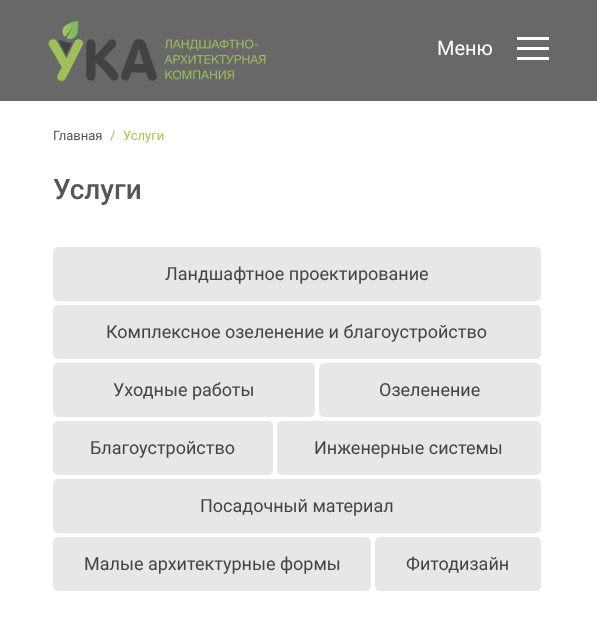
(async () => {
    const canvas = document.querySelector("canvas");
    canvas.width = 597;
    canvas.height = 642;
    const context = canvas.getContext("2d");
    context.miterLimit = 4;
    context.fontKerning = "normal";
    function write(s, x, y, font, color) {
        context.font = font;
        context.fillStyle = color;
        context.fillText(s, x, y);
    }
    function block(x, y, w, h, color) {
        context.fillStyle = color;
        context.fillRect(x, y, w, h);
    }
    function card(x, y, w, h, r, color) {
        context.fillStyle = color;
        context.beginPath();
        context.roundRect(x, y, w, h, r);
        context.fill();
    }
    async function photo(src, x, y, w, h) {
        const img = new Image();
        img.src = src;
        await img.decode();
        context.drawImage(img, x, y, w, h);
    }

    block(0, 0, 597, 642, "rgb(255, 255, 255)");
    block(0, 0, 597, 101, "rgb(104, 104, 104)");
    await photo("media/1.png", 48, 21, 218, 60);
    block(517, 37, 32, 3, "rgb(255, 255, 255)");
    write("Меню", 437, 55, "20px Roboto", "rgb(255, 255, 255)");
    block(517, 47, 32, 3, "rgb(255, 255, 255)");
    block(517, 57, 32, 3, "rgb(255, 255, 255)");
    write("Главная", 53, 140, "13px Roboto", "rgb(85, 85, 85)");
    write("/", 110, 140, "13px Roboto", "rgb(162, 199, 65)");
    write("Услуги", 123, 140, "13px Roboto", "rgb(162, 199, 65)");
    write("Услуги", 53, 199, "500 28px Roboto", "rgb(85, 85, 85)");
    card(53, 247, 488, 54, 5, "rgb(231, 231, 231)");
    write("Ландшафтное проектирование", 165, 280, "18px Roboto", "rgb(68, 68, 69)");
    card(53, 305, 488, 54, 5, "rgb(231, 231, 231)");
    write("Комплексное озеленение и благоустройство", 106, 338, "18px Roboto", "rgb(68, 68, 69)");
    card(53, 363, 262, 54, 5, "rgb(231, 231, 231)");
    write("Уходные работы", 113, 396, "18px Roboto", "rgb(68, 68, 69)");
    card(319, 363, 222, 54, 5, "rgb(231, 231, 231)");
    write("Озеленение", 379, 396, "18px Roboto", "rgb(68, 68, 69)");
    card(53, 421, 220, 54, 5, "rgb(231, 231, 231)");
    write("Благоустройство", 90, 454, "18px Roboto", "rgb(68, 68, 69)");
    card(277, 421, 264, 54, 5, "rgb(231, 231, 231)");
    write("Инженерные системы", 314, 454, "18px Roboto", "rgb(68, 68, 69)");
    card(53, 479, 488, 54, 5, "rgb(231, 231, 231)");
    write("Посадочный материал", 200, 512, "18px Roboto", "rgb(68, 68, 69)");
    card(53, 537, 318, 54, 5, "rgb(231, 231, 231)");
    write("Малые архитектурные формы", 84, 570, "18px Roboto", "rgb(68, 68, 69)");
    card(375, 537, 166, 54, 5, "rgb(231, 231, 231)");
    write("Фитодизайн", 406, 570, "18px Roboto", "rgb(68, 68, 69)");
})();
